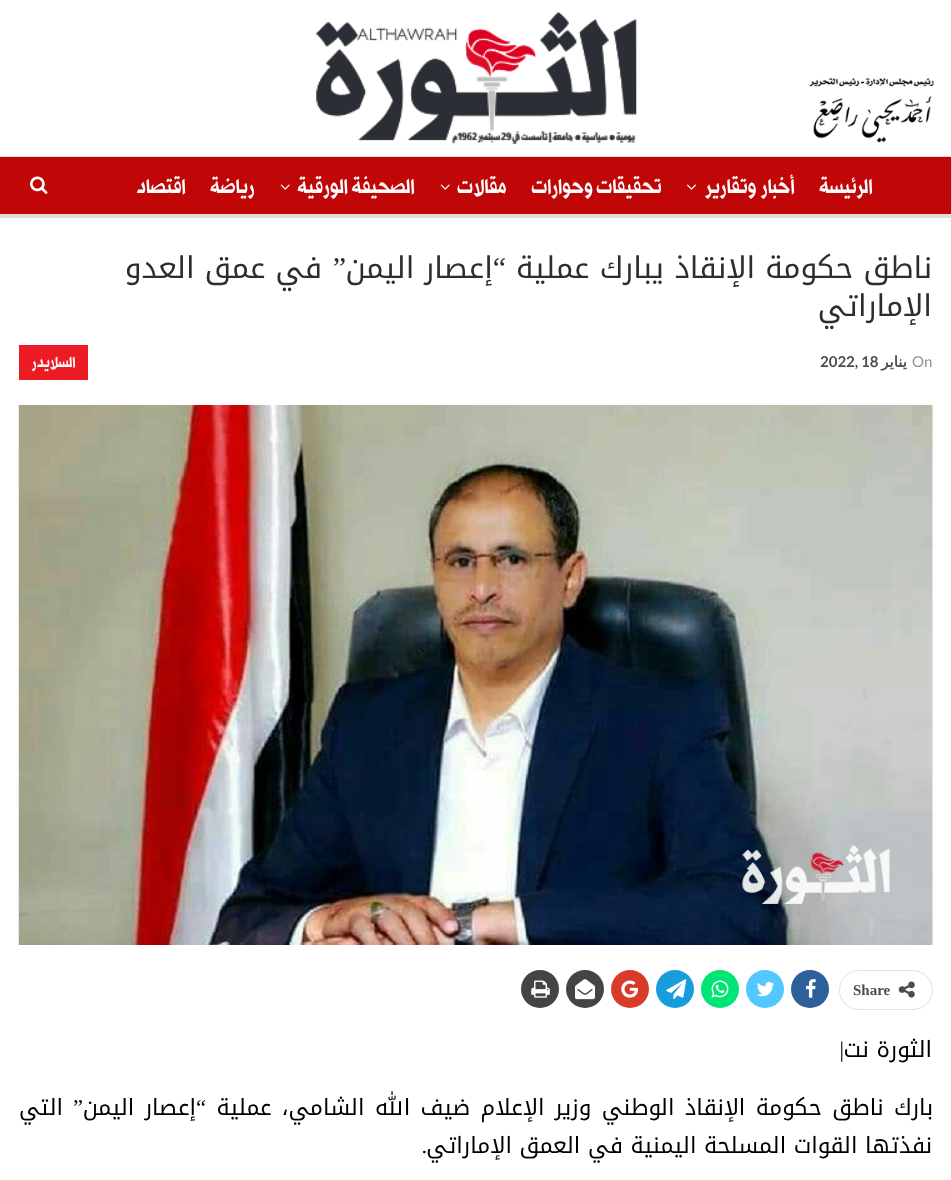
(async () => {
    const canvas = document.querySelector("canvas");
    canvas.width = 951;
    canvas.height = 1180;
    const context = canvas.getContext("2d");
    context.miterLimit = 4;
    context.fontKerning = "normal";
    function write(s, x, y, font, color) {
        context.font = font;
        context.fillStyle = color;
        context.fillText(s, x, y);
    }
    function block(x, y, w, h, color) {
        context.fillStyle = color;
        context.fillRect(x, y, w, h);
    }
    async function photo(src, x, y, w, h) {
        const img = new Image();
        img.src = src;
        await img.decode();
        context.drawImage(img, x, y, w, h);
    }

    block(0, 0, 951, 1180, "rgb(255, 255, 255)");
    await photo("media/1.png", 808, 78, 126, 65);
    await photo("media/2.png", 316, 12, 321, 132);
    block(0, 157, 951, 57, "rgb(192, 6, 7)");
    block(0, 156, 951, 1, "rgb(222, 222, 222)");
    block(0, 214, 951, 4, "rgb(222, 222, 222)");
    context.direction = "rtl";
    write("الرئيسة", 872, 193, "500 28.75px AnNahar", "rgb(255, 255, 255)");
    write("أخبار وتقارير", 794, 193, "500 28.75px AnNahar", "rgb(255, 255, 255)");
    await photo("media/3.png", 687, 184, 9, 6);
    write("تحقيقات وحوارات", 661, 193, "500 28.75px AnNahar", "rgb(255, 255, 255)");
    write("مقالات", 506, 193, "500 28.75px AnNahar", "rgb(255, 255, 255)");
    await photo("media/4.png", 440, 184, 10, 6);
    write("الصحيفة الورقية", 414, 193, "500 28.75px AnNahar", "rgb(255, 255, 255)");
    await photo("media/4.png", 280, 184, 10, 6);
    write("رياضة", 254, 193, "500 28.75px AnNahar", "rgb(255, 255, 255)");
    write("اقتصاد", 185, 193, "500 28.75px AnNahar", "rgb(255, 255, 255)");
    await photo("media/5.png", 30, 176, 18, 18);
    write("ناطق حكومة الإنقاذ يبارك عملية", 932, 278, "30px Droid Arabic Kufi", "rgb(45, 45, 45)");
    write("“", 506, 278, "30px Liberation Serif", "rgb(45, 45, 45)");
    write("إعصار اليمن", 493, 278, "30px Droid Arabic Kufi", "rgb(45, 45, 45)");
    write("”", 346, 278, "30px Liberation Serif", "rgb(45, 45, 45)");
    write("في عمق العدو", 322, 278, "30px Droid Arabic Kufi", "rgb(45, 45, 45)");
    write("الإماراتي", 932, 316, "30px Droid Arabic Kufi", "rgb(45, 45, 45)");
    context.direction = "ltr";
    write("On", 912, 367, "15px Lato", "rgb(143, 143, 143)");
    context.direction = "rtl";
    write("يناير", 907, 367, "bold 15px DejaVu Sans", "rgb(77, 77, 77)");
    context.direction = "ltr";
    write("2022, 18", 820, 367, "bold 15px Lato", "rgb(77, 77, 77)");
    block(19, 345, 69, 35, "rgb(237, 28, 36)");
    context.direction = "rtl";
    write("السلايدر", 75, 367, "500 21px AnNahar", "rgb(255, 255, 255)");
    await photo("media/6.png", 18, 405, 915, 540);
    context.beginPath();
    context.roundRect(839.5, 970.5, 93, 39, 19.5);
    context.strokeStyle = "rgb(226, 226, 226)";
    context.stroke();
    await photo("media/7.png", 898, 981, 17, 17);
    context.direction = "ltr";
    write("Share", 853, 995, "bold 15px Liberation Serif", "rgb(77, 77, 77)");
    context.fillStyle = "rgb(45, 95, 154)";
    context.beginPath();
    context.arc(810, 989, 19, 0, Math.PI * 2);
    context.fill();
    await photo("media/8.png", 806, 979, 10, 19);
    context.fillStyle = "rgb(83, 199, 255)";
    context.beginPath();
    context.arc(765, 989, 19, 0, Math.PI * 2);
    context.fill();
    await photo("media/9.png", 757, 982, 18, 15);
    context.fillStyle = "rgb(0, 230, 118)";
    context.beginPath();
    context.arc(720, 989, 19, 0, Math.PI * 2);
    context.fill();
    await photo("media/10.png", 711, 980, 18, 18);
    context.fillStyle = "rgb(23, 156, 222)";
    context.beginPath();
    context.arc(675, 989, 19, 0, Math.PI * 2);
    context.fill();
    await photo("media/11.png", 666, 979, 21, 20);
    context.fillStyle = "rgb(217, 59, 43)";
    context.beginPath();
    context.arc(630, 989, 19, 0, Math.PI * 2);
    context.fill();
    await photo("media/12.png", 621, 980, 17, 18);
    context.fillStyle = "rgb(68, 68, 68)";
    context.beginPath();
    context.arc(585, 989, 19, 0, Math.PI * 2);
    context.fill();
    await photo("media/13.png", 575, 979, 20, 21);
    context.beginPath();
    context.arc(540, 989, 19, 0, Math.PI * 2);
    context.fill();
    await photo("media/14.png", 531, 980, 19, 18);
    context.direction = "rtl";
    write("الثورة نت", 932, 1057, "22.5px Droid Arabic Kufi", "rgb(0, 0, 0)");
    write("|", 844, 1057, "22.5px Liberation Serif", "rgb(0, 0, 0)");
    context.wordSpacing = "2.75px";
    write("بارك ناطق حكومة الإنقاذ الوطني وزير الإعلام ضيف الله الشامي، عملية", 933, 1115, "22.5px Droid Arabic Kufi", "rgb(0, 0, 0)");
    context.wordSpacing = "0px";
    write("“", 206, 1115, "22.5px Liberation Serif", "rgb(0, 0, 0)");
    context.wordSpacing = "2.75px";
    write("إعصار اليمن", 196, 1115, "22.5px Droid Arabic Kufi", "rgb(0, 0, 0)");
    context.wordSpacing = "0px";
    write("”", 83, 1115, "22.5px Liberation Serif", "rgb(0, 0, 0)");
    write("التي", 63, 1115, "22.5px Droid Arabic Kufi", "rgb(0, 0, 0)");
    write("نفذتها القوات المسلحة اليمنية في العمق الإماراتي", 932, 1153, "22.5px Droid Arabic Kufi", "rgb(0, 0, 0)");
    write(".", 427, 1153, "22.5px Liberation Serif", "rgb(0, 0, 0)");
})();
